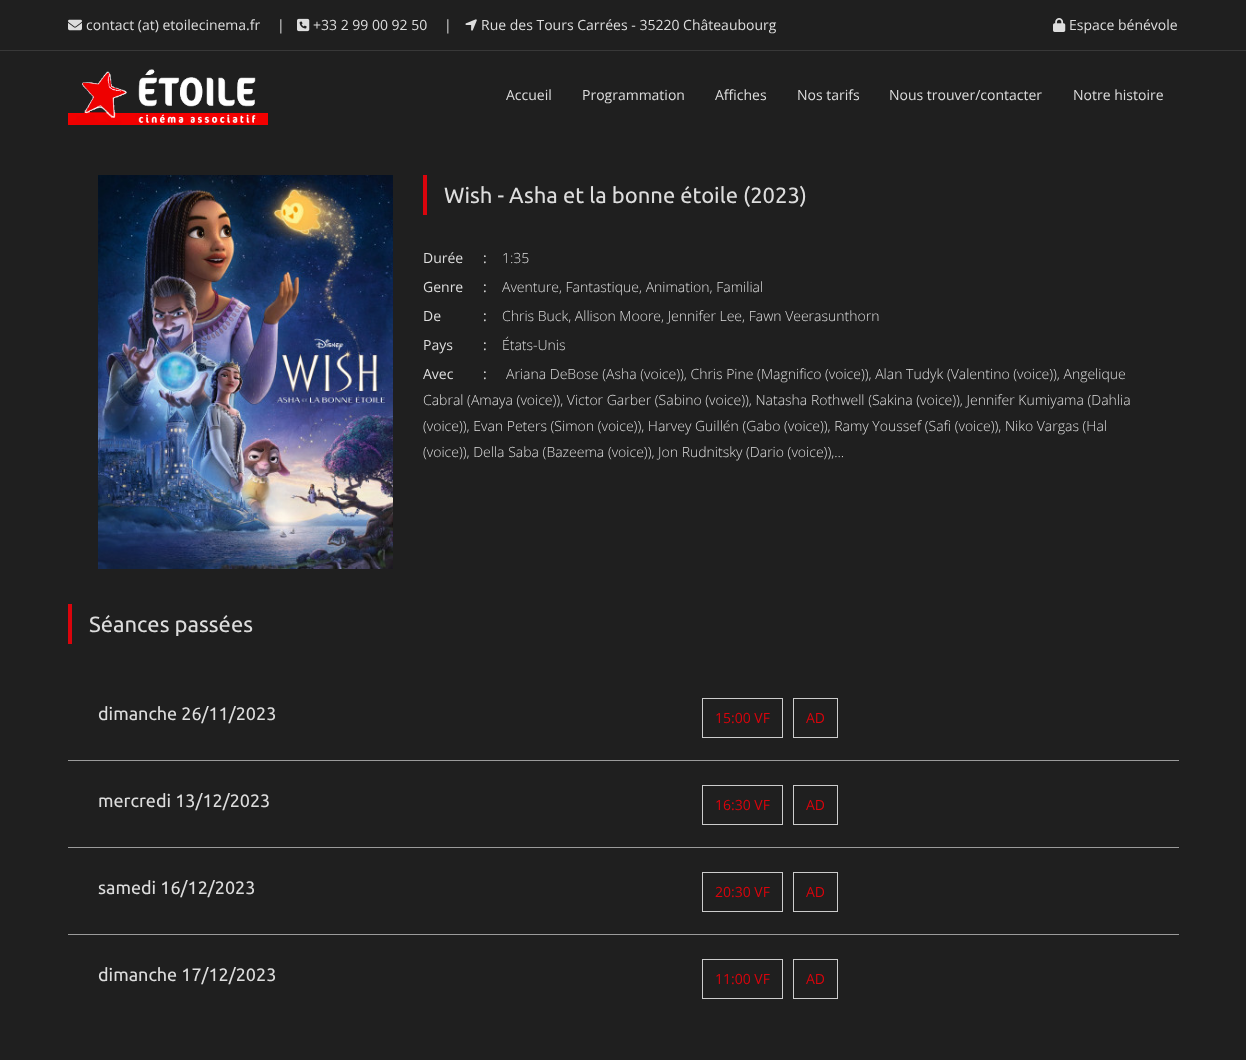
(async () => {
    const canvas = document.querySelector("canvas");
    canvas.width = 1246;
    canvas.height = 1060;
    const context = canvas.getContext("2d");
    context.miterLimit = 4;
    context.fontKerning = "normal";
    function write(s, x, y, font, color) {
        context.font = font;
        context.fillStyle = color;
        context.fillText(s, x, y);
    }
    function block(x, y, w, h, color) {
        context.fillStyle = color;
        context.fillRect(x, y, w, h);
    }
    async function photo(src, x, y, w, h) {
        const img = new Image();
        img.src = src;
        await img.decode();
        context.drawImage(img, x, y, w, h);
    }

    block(0, 0, 1246, 1060, "rgb(31, 31, 31)");
    await photo("media/1.png", 68, 19, 14, 12);
    write("contact (at) etoilecinema.fr", 86, 30, "14px Open Sans", "rgb(221, 221, 221)");
    write("|", 277, 30, "14px Open Sans", "rgb(221, 221, 221)");
    await photo("media/2.png", 297, 18, 13, 14);
    write("+33 2 99 00 92 50", 313, 30, "14px Open Sans", "rgb(221, 221, 221)");
    write("|", 444, 30, "14px Open Sans", "rgb(221, 221, 221)");
    await photo("media/3.png", 465, 19, 12, 12);
    write("Rue des Tours Carrées - 35220 Châteaubourg", 481, 30, "14px Open Sans", "rgb(221, 221, 221)");
    await photo("media/4.png", 1053, 18, 13, 14);
    write("Espace bénévole", 1069, 30, "14px Open Sans", "rgb(221, 221, 221)");
    block(0, 50, 1246, 1, "rgb(56, 56, 56)");
    await photo("media/5.png", 68, 69, 200, 56);
    write("Accueil", 506, 100, "14px Open Sans", "rgb(221, 221, 221)");
    write("Programmation", 582, 100, "14px Open Sans", "rgb(221, 221, 221)");
    write("Affiches", 715, 100, "14px Open Sans", "rgb(221, 221, 221)");
    write("Nos tarifs", 797, 100, "14px Open Sans", "rgb(221, 221, 221)");
    write("Nous trouver/contacter", 889, 100, "14px Open Sans", "rgb(221, 221, 221)");
    write("Notre histoire", 1073, 100, "14px Open Sans", "rgb(221, 221, 221)");
    await photo("media/6.png", 98, 175, 295, 394);
    block(423, 175, 4, 40, "rgb(218, 4, 12)");
    write("Wish - Asha et la bonne étoile (2023)", 444, 203, "22px Ubuntu", "rgb(221, 221, 221)");
    write("Durée", 423, 263, "14px Open Sans", "rgb(221, 221, 221)");
    write(":", 483, 263, "14px Open Sans", "rgb(221, 221, 221)");
    write("1:35", 502, 263, "300 14px Open Sans", "rgb(221, 221, 221)");
    write("Genre", 423, 292, "14px Open Sans", "rgb(221, 221, 221)");
    write(":", 483, 292, "14px Open Sans", "rgb(221, 221, 221)");
    write("Aventure, Fantastique, Animation, Familial", 502, 292, "300 14px Open Sans", "rgb(221, 221, 221)");
    write("De", 423, 321, "14px Open Sans", "rgb(221, 221, 221)");
    write(":", 483, 321, "14px Open Sans", "rgb(221, 221, 221)");
    write("Chris Buck, Allison Moore, Jennifer Lee, Fawn Veerasunthorn", 502, 321, "300 14px Open Sans", "rgb(221, 221, 221)");
    write("Pays", 423, 350, "14px Open Sans", "rgb(221, 221, 221)");
    write(":", 483, 350, "14px Open Sans", "rgb(221, 221, 221)");
    write("États-Unis", 502, 350, "300 14px Open Sans", "rgb(221, 221, 221)");
    write("Avec", 423, 379, "14px Open Sans", "rgb(221, 221, 221)");
    write(":", 483, 379, "14px Open Sans", "rgb(221, 221, 221)");
    write("Ariana DeBose (Asha (voice)), Chris Pine (Magnifico (voice)), Alan Tudyk (Valentino (voice)), Angelique", 506, 379, "300 14px Open Sans", "rgb(221, 221, 221)");
    write("Cabral (Amaya (voice)), Victor Garber (Sabino (voice)), Natasha Rothwell (Sakina (voice)), Jennifer Kumiyama (Dahlia", 423, 405, "300 14px Open Sans", "rgb(221, 221, 221)");
    write("(voice)), Evan Peters (Simon (voice)), Harvey Guillén (Gabo (voice)), Ramy Youssef (Safi (voice)), Niko Vargas (Hal", 423, 431, "300 14px Open Sans", "rgb(221, 221, 221)");
    write("(voice)), Della Saba (Bazeema (voice)), Jon Rudnitsky (Dario (voice)),...", 423, 457, "300 14px Open Sans", "rgb(221, 221, 221)");
    block(68, 604, 4, 40, "rgb(218, 4, 12)");
    write("Séances passées", 89, 632, "22px Ubuntu", "rgb(221, 221, 221)");
    block(68, 760, 1111, 1, "rgb(155, 155, 155)");
    write("dimanche 26/11/2023", 98, 720, "18px Ubuntu", "rgb(221, 221, 221)");
    context.strokeStyle = "rgb(204, 204, 204)";
    context.strokeRect(702.5, 698.5, 80, 39);
    write("15:00 VF", 715, 723, "14px Open Sans", "rgb(218, 4, 12)");
    context.strokeRect(793.5, 698.5, 44, 39);
    write("AD", 806, 723, "14px Open Sans", "rgb(218, 4, 12)");
    block(68, 847, 1111, 1, "rgb(155, 155, 155)");
    write("mercredi 13/12/2023", 98, 807, "18px Ubuntu", "rgb(221, 221, 221)");
    context.strokeRect(702.5, 785.5, 80, 39);
    write("16:30 VF", 715, 810, "14px Open Sans", "rgb(218, 4, 12)");
    context.strokeRect(793.5, 785.5, 44, 39);
    write("AD", 806, 810, "14px Open Sans", "rgb(218, 4, 12)");
    block(68, 934, 1111, 1, "rgb(155, 155, 155)");
    write("samedi 16/12/2023", 98, 894, "18px Ubuntu", "rgb(221, 221, 221)");
    context.strokeRect(702.5, 872.5, 80, 39);
    write("20:30 VF", 715, 897, "14px Open Sans", "rgb(218, 4, 12)");
    context.strokeRect(793.5, 872.5, 44, 39);
    write("AD", 806, 897, "14px Open Sans", "rgb(218, 4, 12)");
    write("dimanche 17/12/2023", 98, 981, "18px Ubuntu", "rgb(221, 221, 221)");
    context.strokeRect(702.5, 959.5, 80, 39);
    write("11:00 VF", 715, 984, "14px Open Sans", "rgb(218, 4, 12)");
    context.strokeRect(793.5, 959.5, 44, 39);
    write("AD", 806, 984, "14px Open Sans", "rgb(218, 4, 12)");
})();
